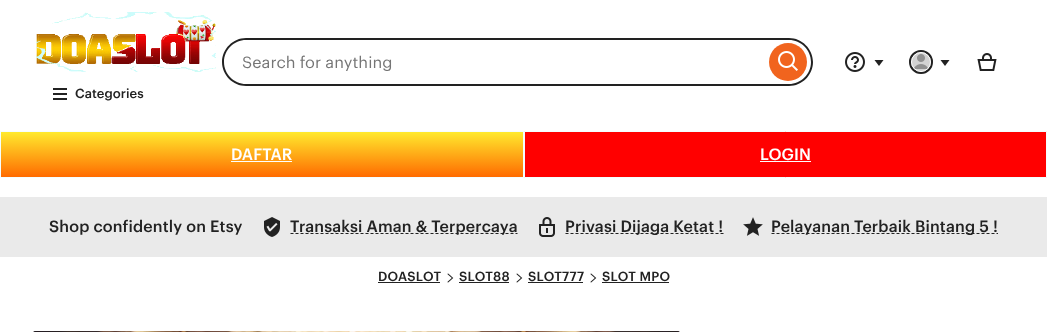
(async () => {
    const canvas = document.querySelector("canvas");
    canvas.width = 1047;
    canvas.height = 332;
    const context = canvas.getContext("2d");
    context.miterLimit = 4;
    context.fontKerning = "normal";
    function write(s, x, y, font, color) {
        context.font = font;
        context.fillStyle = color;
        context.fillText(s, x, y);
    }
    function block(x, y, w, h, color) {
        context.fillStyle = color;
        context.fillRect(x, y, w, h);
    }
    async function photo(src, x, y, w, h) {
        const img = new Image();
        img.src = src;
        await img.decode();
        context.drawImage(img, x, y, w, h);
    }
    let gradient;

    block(0, 0, 1047, 332, "rgb(255, 255, 255)");
    context.fillStyle = "rgb(34, 34, 34)";
    context.beginPath();
    context.moveTo(246, 38);
    context.lineTo(764, 38);
    context.lineTo(764, 86);
    context.lineTo(246, 86);
    context.bezierCurveTo(233, 86, 222, 75, 222, 62);
    context.bezierCurveTo(222, 49, 233, 38, 246, 38);
    context.closePath();
    context.moveTo(246, 40);
    context.lineTo(764, 40);
    context.lineTo(764, 84);
    context.lineTo(246, 84);
    context.bezierCurveTo(234, 84, 224, 74, 224, 62);
    context.bezierCurveTo(224, 50, 234, 40, 246, 40);
    context.closePath();
    context.fill("evenodd");
    write("Search for anything", 242, 68, "16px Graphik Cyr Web", "rgb(117, 117, 117)");
    context.fillStyle = "rgb(34, 34, 34)";
    context.beginPath();
    context.moveTo(764, 38);
    context.lineTo(789, 38);
    context.bezierCurveTo(802, 38, 813, 49, 813, 62);
    context.bezierCurveTo(813, 75, 802, 86, 789, 86);
    context.lineTo(764, 86);
    context.closePath();
    context.moveTo(764, 40);
    context.lineTo(789, 40);
    context.bezierCurveTo(801, 40, 811, 50, 811, 62);
    context.bezierCurveTo(811, 74, 801, 84, 789, 84);
    context.lineTo(764, 84);
    context.closePath();
    context.fill("evenodd");
    context.fillStyle = "rgb(241, 100, 30)";
    context.beginPath();
    context.arc(788, 62, 19, 0, Math.PI * 2);
    context.fill();
    await photo("media/1.png", 778, 51, 20, 20);
    await photo("media/2.png", 845, 52, 20, 20);
    context.fillStyle = "rgb(34, 34, 34)";
    context.beginPath();
    context.moveTo(883.5, 60);
    context.lineTo(879, 66);
    context.lineTo(874.5, 60);
    context.closePath();
    context.fill();
    await photo("media/3.png", 909, 50, 24, 24);
    context.beginPath();
    context.arc(921, 62, 11, 0, Math.PI * 2);
    context.strokeStyle = "rgb(34, 34, 34)";
    context.lineWidth = 2;
    context.stroke();
    context.beginPath();
    context.arc(921, 62, 9.5, 0, Math.PI * 2);
    context.strokeStyle = "rgb(255, 255, 255)";
    context.lineWidth = 1;
    context.stroke();
    context.beginPath();
    context.moveTo(949.5, 60);
    context.lineTo(945, 66);
    context.lineTo(940.5, 60);
    context.closePath();
    context.fill();
    await photo("media/4.png", 977, 53, 20, 18);
    await photo("media/5.png", 36, 12, 180, 60);
    block(53, 93, 14, 2, "rgb(34, 34, 34)");
    block(53, 98, 14, 2, "rgb(34, 34, 34)");
    block(53, 88, 14, 2, "rgb(34, 34, 34)");
    write("Categories", 75, 98, "500 13px Graphik Cyr Web", "rgb(34, 34, 34)");
    gradient = context.createLinearGradient(262, 132, 262, 177);
    gradient.addColorStop(0, "rgb(255, 234, 46)");
    gradient.addColorStop(1, "rgb(255, 107, 0)");
    context.fillStyle = gradient;
    context.fillRect(1, 132, 522, 45);
    context.strokeStyle = "rgb(244, 254, 255)";
    context.strokeRect(0.5, 131.5, 523, 46);
    write("DAFTAR", 231, 160, "500 16px Graphik Cyr Web", "rgb(255, 255, 255)");
    block(231, 161, 61, 1, "rgb(255, 255, 255)");
    context.fillStyle = "rgb(255, 0, 0)";
    context.beginPath();
    context.rect(524.5, 131.5, 522, 46);
    context.fill();
    context.stroke();
    write("LOGIN", 760, 160, "500 16px Graphik Cyr Web", "rgb(255, 255, 255)");
    block(760, 161, 51, 1, "rgb(255, 255, 255)");
    block(0, 197, 1047, 60, "rgb(234, 234, 234)");
    context.letterSpacing = "0.1px";
    write("Shop confidently on Etsy", 49, 232, "500 16px Graphik Cyr Web", "rgb(34, 34, 34)");
    await photo("media/6.png", 264, 217, 16, 20);
    context.beginPath();
    context.moveTo(290.5, 233.5);
    context.lineTo(517.5, 233.5);
    context.strokeStyle = "rgb(34, 34, 34)";
    context.setLineDash([3, 2]);
    context.stroke();
    write("Transaksi Aman & Terpercaya", 290, 232, "500 16px Graphik Cyr Web", "rgb(34, 34, 34)");
    await photo("media/7.png", 539, 217, 16, 20);
    context.beginPath();
    context.moveTo(565.5, 233.5);
    context.lineTo(723.5, 233.5);
    context.stroke();
    write("Privasi Dijaga Ketat !", 565, 232, "500 16px Graphik Cyr Web", "rgb(34, 34, 34)");
    await photo("media/8.png", 743, 217, 20, 19);
    context.beginPath();
    context.moveTo(771.5, 233.5);
    context.lineTo(998, 233.5);
    context.stroke();
    write("Pelayanan Terbaik Bintang 5 !", 771, 232, "500 16px Graphik Cyr Web", "rgb(34, 34, 34)");
    context.letterSpacing = "0.25px";
    write("DOASLOT", 378, 281, "500 13px Graphik Cyr Web", "rgb(34, 34, 34)");
    block(378, 282, 62, 1, "rgb(34, 34, 34)");
    await photo("media/9.png", 447, 273, 7, 10);
    write("SLOT88", 459, 281, "500 13px Graphik Cyr Web", "rgb(34, 34, 34)");
    block(459, 282, 50, 1, "rgb(34, 34, 34)");
    await photo("media/9.png", 516, 273, 7, 10);
    write("SLOT777", 528, 281, "500 13px Graphik Cyr Web", "rgb(34, 34, 34)");
    block(528, 282, 55, 1, "rgb(34, 34, 34)");
    await photo("media/9.png", 590, 273, 7, 10);
    write("SLOT MPO", 602, 281, "500 13px Graphik Cyr Web", "rgb(34, 34, 34)");
    block(602, 282, 67, 1, "rgb(34, 34, 34)");
    await photo("media/10.png", 33, 331, 647, 1);
})();
